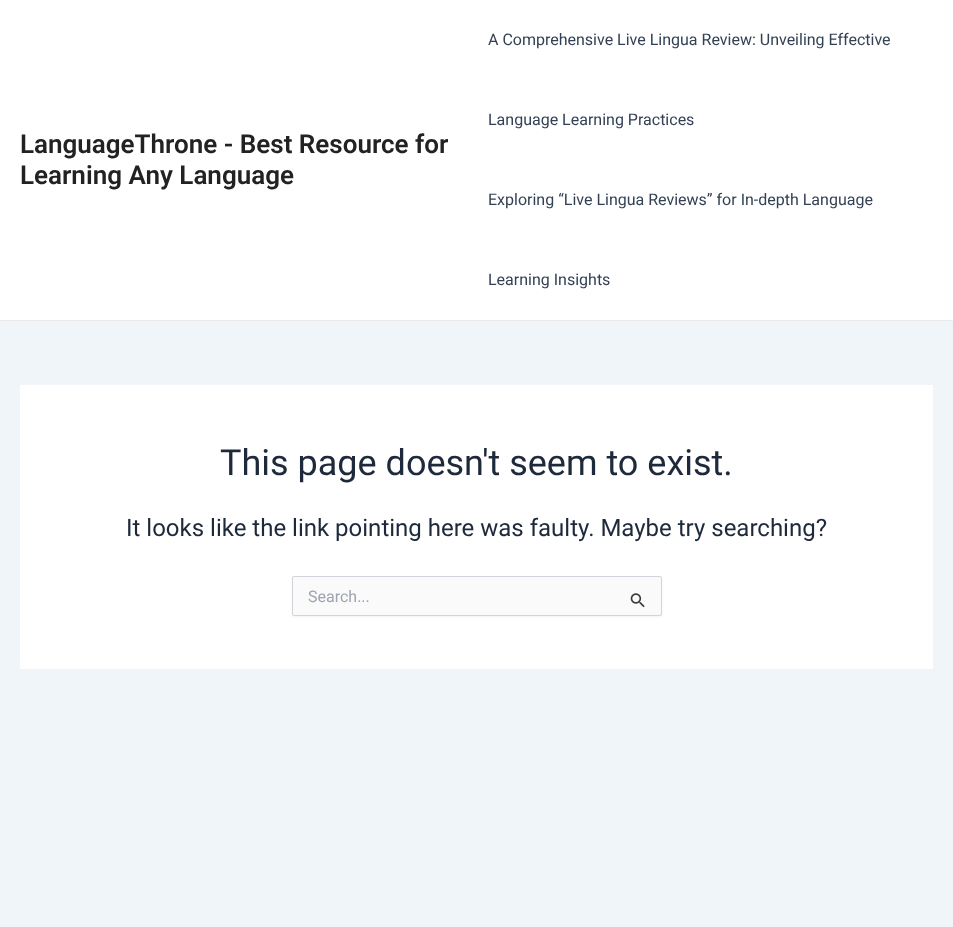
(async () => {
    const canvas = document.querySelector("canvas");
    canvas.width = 953;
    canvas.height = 927;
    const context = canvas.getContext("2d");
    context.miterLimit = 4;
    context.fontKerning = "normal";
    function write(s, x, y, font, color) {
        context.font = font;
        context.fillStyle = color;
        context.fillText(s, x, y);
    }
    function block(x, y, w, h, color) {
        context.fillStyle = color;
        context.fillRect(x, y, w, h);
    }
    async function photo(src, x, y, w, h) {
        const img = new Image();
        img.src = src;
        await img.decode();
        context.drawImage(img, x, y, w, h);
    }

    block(0, 0, 953, 927, "rgb(240, 245, 250)");
    block(0, 0, 953, 320, "rgb(255, 255, 255)");
    block(0, 320, 953, 1, "rgb(234, 234, 234)");
    write("LanguageThrone - Best Resource for", 20, 153, "600 26px Roboto", "rgb(34, 34, 34)");
    write("Learning Any Language", 20, 184, "600 26px Roboto", "rgb(34, 34, 34)");
    write("A Comprehensive Live Lingua Review: Unveiling Effective", 488, 45, "16px Roboto", "rgb(51, 65, 85)");
    write("Language Learning Practices", 488, 125, "16px Roboto", "rgb(51, 65, 85)");
    write("Exploring “Live Lingua Reviews” for In-depth Language", 488, 205, "16px Roboto", "rgb(51, 65, 85)");
    write("Learning Insights", 488, 285, "16px Roboto", "rgb(51, 65, 85)");
    block(20, 385, 913, 284, "rgb(255, 255, 255)");
    write("This page doesn't seem to exist.", 220, 475, "36px Roboto", "rgb(30, 41, 59)");
    write("It looks like the link pointing here was faulty. Maybe try searching?", 126, 536, "24px Roboto", "rgb(30, 41, 59)");
    context.fillStyle = "rgba(0, 0, 0, 0.05)";
    context.filter = "blur(1px)";
    context.beginPath();
    context.roundRect(292, 577, 370, 40, 2);
    context.fill();
    context.filter = "none";
    context.fillStyle = "rgb(250, 250, 250)";
    context.beginPath();
    context.roundRect(292.5, 576.5, 369, 39, 1.5);
    context.fill();
    context.strokeStyle = "rgb(209, 213, 219)";
    context.stroke();
    write("Search...", 308, 602, "16px Roboto", "rgb(156, 163, 175)");
    await photo("media/1.png", 630, 593, 15, 15);
})();
